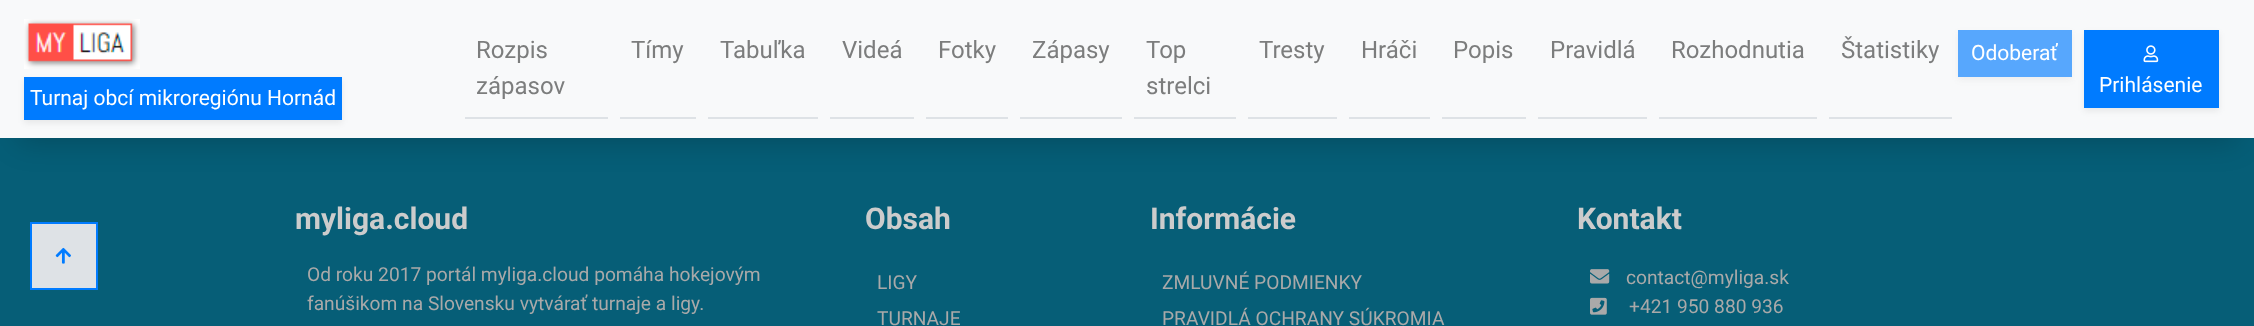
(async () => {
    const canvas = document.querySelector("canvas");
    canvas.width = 2254;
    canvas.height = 326;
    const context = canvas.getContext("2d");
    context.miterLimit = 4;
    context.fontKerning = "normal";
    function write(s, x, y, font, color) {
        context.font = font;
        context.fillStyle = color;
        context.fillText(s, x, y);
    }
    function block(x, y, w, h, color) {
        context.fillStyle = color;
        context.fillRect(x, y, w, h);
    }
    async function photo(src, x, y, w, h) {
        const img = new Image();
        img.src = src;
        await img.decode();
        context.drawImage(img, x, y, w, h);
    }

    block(0, 0, 2254, 326, "rgb(6, 94, 119)");
    context.fillStyle = "rgba(0, 0, 0, 0.2)";
    context.filter = "blur(15px)";
    context.beginPath();
    context.rect(18, 39, 2219, 102);
    context.fill();
    context.filter = "none";
    block(0, 0, 2254, 138, "rgb(248, 249, 250)");
    await photo("media/1.png", 24, 19, 116, 50);
    context.fillStyle = "rgba(0, 0, 0, 0.07)";
    context.filter = "blur(3px)";
    context.beginPath();
    context.rect(24, 80, 318, 43);
    context.fill();
    context.filter = "none";
    block(24, 77, 318, 43, "rgb(0, 123, 255)");
    write("Turnaj obcí mikroregiónu Hornád", 30, 105, "21px Roboto", "rgb(255, 255, 255)");
    block(465, 117, 143, 2, "rgb(222, 226, 230)");
    write("Rozpis", 476, 58, "24px Roboto", "rgb(124, 125, 125)");
    write("zápasov", 476, 94, "24px Roboto", "rgb(124, 125, 125)");
    block(620, 117, 76, 2, "rgb(222, 226, 230)");
    write("Tímy", 631, 58, "24px Roboto", "rgb(124, 125, 125)");
    block(708, 117, 110, 2, "rgb(222, 226, 230)");
    write("Tabuľka", 720, 58, "24px Roboto", "rgb(124, 125, 125)");
    block(830, 117, 84, 2, "rgb(222, 226, 230)");
    write("Videá", 842, 58, "24px Roboto", "rgb(124, 125, 125)");
    block(926, 117, 82, 2, "rgb(222, 226, 230)");
    write("Fotky", 938, 58, "24px Roboto", "rgb(124, 125, 125)");
    block(1020, 117, 102, 2, "rgb(222, 226, 230)");
    write("Zápasy", 1032, 58, "24px Roboto", "rgb(124, 125, 125)");
    block(1134, 117, 102, 2, "rgb(222, 226, 230)");
    write("Top", 1146, 58, "24px Roboto", "rgb(124, 125, 125)");
    write("strelci", 1146, 94, "24px Roboto", "rgb(124, 125, 125)");
    block(1248, 117, 89, 2, "rgb(222, 226, 230)");
    write("Tresty", 1259, 58, "24px Roboto", "rgb(124, 125, 125)");
    block(1349, 117, 81, 2, "rgb(222, 226, 230)");
    write("Hráči", 1361, 58, "24px Roboto", "rgb(124, 125, 125)");
    block(1442, 117, 84, 2, "rgb(222, 226, 230)");
    write("Popis", 1453, 58, "24px Roboto", "rgb(124, 125, 125)");
    block(1538, 117, 109, 2, "rgb(222, 226, 230)");
    write("Pravidlá", 1550, 58, "24px Roboto", "rgb(124, 125, 125)");
    block(1659, 117, 158, 2, "rgb(222, 226, 230)");
    write("Rozhodnutia", 1671, 58, "24px Roboto", "rgb(124, 125, 125)");
    block(1829, 117, 123, 2, "rgb(222, 226, 230)");
    write("Štatistiky", 1841, 58, "24px Roboto", "rgb(124, 125, 125)");
    context.fillStyle = "rgba(87, 87, 87, 0.07)";
    context.filter = "blur(3px)";
    context.beginPath();
    context.rect(1958, 33, 114, 47);
    context.fill();
    context.filter = "none";
    block(1958, 30, 114, 47, "rgb(87, 167, 253)");
    write("Odoberať", 1971, 60, "21px Roboto", "rgb(255, 255, 255)");
    context.fillStyle = "rgba(0, 0, 0, 0.07)";
    context.filter = "blur(3px)";
    context.beginPath();
    context.rect(2084, 33, 135, 78);
    context.fill();
    context.filter = "none";
    block(2084, 30, 135, 78, "rgb(0, 123, 255)");
    await photo("media/2.png", 2143, 45, 16, 18);
    write("Prihlásenie", 2099, 92, "21px Roboto", "rgb(255, 255, 255)");
    context.fillStyle = "rgb(222, 226, 230)";
    context.beginPath();
    context.rect(31, 223, 66, 66);
    context.fill();
    context.strokeStyle = "rgb(0, 123, 255)";
    context.lineWidth = 2;
    context.stroke();
    await photo("media/3.png", 55, 247, 16, 17);
    write("myliga.cloud", 295, 229, "bold 30px Roboto", "rgb(204, 204, 204)");
    write("Od roku 2017 portál myliga.cloud pomáha hokejovým", 307, 281, "19.2px Roboto", "rgb(169, 169, 169)");
    write("fanúšikom na Slovensku vytvárať turnaje a ligy.", 307, 310, "19.2px Roboto", "rgb(169, 169, 169)");
    write("Obsah", 865, 229, "bold 30px Roboto", "rgb(204, 204, 204)");
    write("LIGY", 877, 289, "19.2px Roboto", "rgb(169, 169, 169)");
    write("TURNAJE", 877, 325, "19.2px Roboto", "rgb(169, 169, 169)");
    write("Informácie", 1150, 229, "bold 30px Roboto", "rgb(204, 204, 204)");
    write("ZMLUVNÉ PODMIENKY", 1162, 289, "19.2px Roboto", "rgb(169, 169, 169)");
    write("PRAVIDLÁ OCHRANY SÚKROMIA", 1162, 325, "19.2px Roboto", "rgb(169, 169, 169)");
    write("Kontakt", 1577, 229, "bold 30px Roboto", "rgb(204, 204, 204)");
    await photo("media/4.png", 1590, 269, 20, 15);
    write("contact@myliga.sk", 1626, 284, "19.2px Roboto", "rgb(169, 169, 169)");
    await photo("media/5.png", 1590, 297, 17, 18);
    write("+421 950 880 936", 1629, 313, "19.2px Roboto", "rgb(169, 169, 169)");
})();
